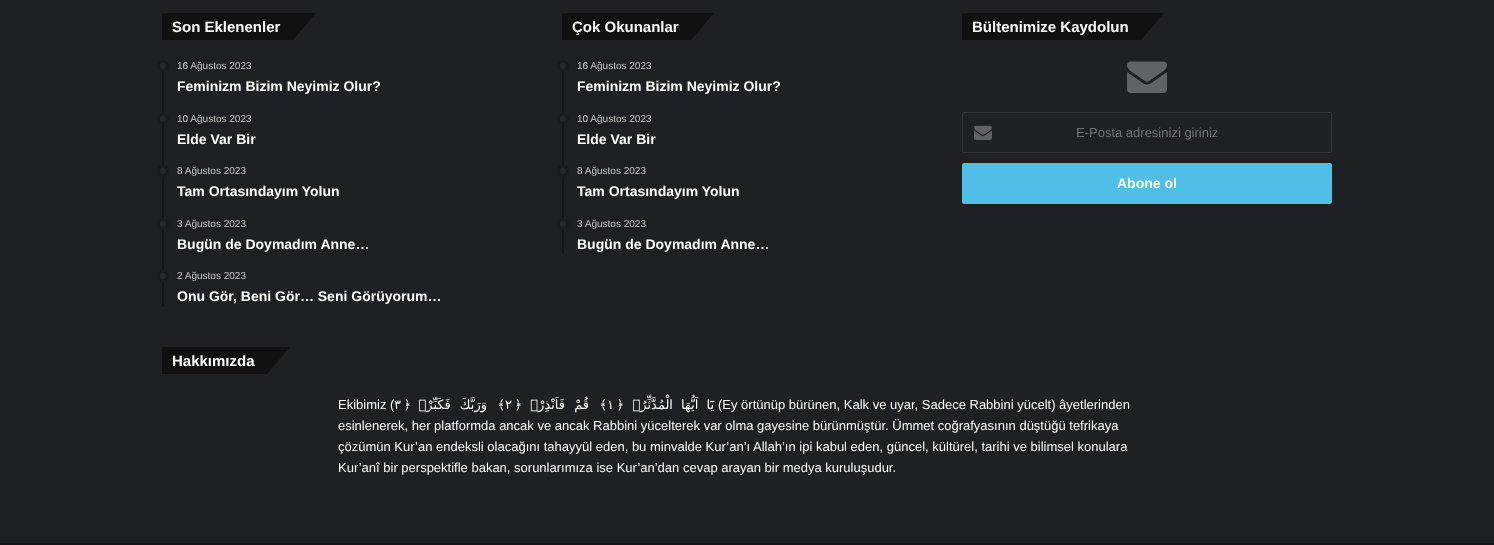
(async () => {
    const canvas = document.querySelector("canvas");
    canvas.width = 1494;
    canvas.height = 545;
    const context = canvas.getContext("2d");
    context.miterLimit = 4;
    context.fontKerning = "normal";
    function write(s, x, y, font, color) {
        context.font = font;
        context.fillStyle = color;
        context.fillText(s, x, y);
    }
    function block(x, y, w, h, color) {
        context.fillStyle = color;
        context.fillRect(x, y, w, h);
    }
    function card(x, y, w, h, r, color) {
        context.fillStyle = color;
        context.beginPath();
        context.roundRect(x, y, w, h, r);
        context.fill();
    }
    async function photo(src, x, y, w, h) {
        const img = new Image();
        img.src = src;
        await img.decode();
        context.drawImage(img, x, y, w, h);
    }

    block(0, 0, 1494, 545, "rgb(31, 32, 36)");
    block(162, 13, 64, 27, "rgb(17, 17, 17)");
    context.beginPath();
    context.moveTo(226, 13);
    context.lineTo(316, 13);
    context.lineTo(293, 40);
    context.lineTo(203, 40);
    context.closePath();
    context.fill();
    write("Son Eklenenler", 172, 32, "bold 15px Liberation Sans", "rgb(251, 251, 251)");
    block(162, 60, 2, 247, "rgb(22, 22, 25)");
    context.fillStyle = "rgb(39, 41, 45)";
    context.beginPath();
    context.arc(163, 66, 4.5, 0, Math.PI * 2);
    context.fill();
    context.strokeStyle = "rgb(27, 28, 31)";
    context.lineWidth = 3;
    context.stroke();
    write("16 Ağustos 2023", 177, 69, "10px Liberation Sans", "rgb(202, 202, 202)");
    write("Feminizm Bizim Neyimiz Olur?", 177, 91, "bold 14px Liberation Sans", "rgb(251, 251, 251)");
    context.fillStyle = "rgb(39, 41, 45)";
    context.beginPath();
    context.arc(163, 119, 4.5, 0, Math.PI * 2);
    context.fill();
    context.stroke();
    write("10 Ağustos 2023", 177, 122, "10px Liberation Sans", "rgb(202, 202, 202)");
    write("Elde Var Bir", 177, 144, "bold 14px Liberation Sans", "rgb(251, 251, 251)");
    context.fillStyle = "rgb(39, 41, 45)";
    context.beginPath();
    context.arc(163, 171, 4.5, 0, Math.PI * 2);
    context.fill();
    context.stroke();
    write("8 Ağustos 2023", 177, 174, "10px Liberation Sans", "rgb(202, 202, 202)");
    write("Tam Ortasındayım Yolun", 177, 196, "bold 14px Liberation Sans", "rgb(251, 251, 251)");
    context.fillStyle = "rgb(39, 41, 45)";
    context.beginPath();
    context.arc(163, 224, 4.5, 0, Math.PI * 2);
    context.fill();
    context.stroke();
    write("3 Ağustos 2023", 177, 227, "10px Liberation Sans", "rgb(202, 202, 202)");
    write("Bugün de Doymadım Anne…", 177, 249, "bold 14px Liberation Sans", "rgb(251, 251, 251)");
    context.fillStyle = "rgb(39, 41, 45)";
    context.beginPath();
    context.arc(163, 276, 4.5, 0, Math.PI * 2);
    context.fill();
    context.stroke();
    write("2 Ağustos 2023", 177, 279, "10px Liberation Sans", "rgb(202, 202, 202)");
    write("Onu Gör, Beni Gör… Seni Görüyorum…", 177, 301, "bold 14px Liberation Sans", "rgb(251, 251, 251)");
    block(562, 13, 63, 27, "rgb(17, 17, 17)");
    context.beginPath();
    context.moveTo(625, 13);
    context.lineTo(714, 13);
    context.lineTo(691, 40);
    context.lineTo(603, 40);
    context.closePath();
    context.fill();
    write("Çok Okunanlar", 572, 32, "bold 15px Liberation Sans", "rgb(251, 251, 251)");
    block(562, 60, 2, 194, "rgb(22, 22, 25)");
    context.fillStyle = "rgb(39, 41, 45)";
    context.beginPath();
    context.arc(563, 66, 4.5, 0, Math.PI * 2);
    context.fill();
    context.stroke();
    write("16 Ağustos 2023", 577, 69, "10px Liberation Sans", "rgb(202, 202, 202)");
    write("Feminizm Bizim Neyimiz Olur?", 577, 91, "bold 14px Liberation Sans", "rgb(251, 251, 251)");
    context.fillStyle = "rgb(39, 41, 45)";
    context.beginPath();
    context.arc(563, 119, 4.5, 0, Math.PI * 2);
    context.fill();
    context.stroke();
    write("10 Ağustos 2023", 577, 122, "10px Liberation Sans", "rgb(202, 202, 202)");
    write("Elde Var Bir", 577, 144, "bold 14px Liberation Sans", "rgb(251, 251, 251)");
    context.fillStyle = "rgb(39, 41, 45)";
    context.beginPath();
    context.arc(563, 171, 4.5, 0, Math.PI * 2);
    context.fill();
    context.stroke();
    write("8 Ağustos 2023", 577, 174, "10px Liberation Sans", "rgb(202, 202, 202)");
    write("Tam Ortasındayım Yolun", 577, 196, "bold 14px Liberation Sans", "rgb(251, 251, 251)");
    context.fillStyle = "rgb(39, 41, 45)";
    context.beginPath();
    context.arc(563, 224, 4.5, 0, Math.PI * 2);
    context.fill();
    context.stroke();
    write("3 Ağustos 2023", 577, 227, "10px Liberation Sans", "rgb(202, 202, 202)");
    write("Bugün de Doymadım Anne…", 577, 249, "bold 14px Liberation Sans", "rgb(251, 251, 251)");
    block(962, 13, 78, 27, "rgb(17, 17, 17)");
    context.beginPath();
    context.moveTo(1040, 13);
    context.lineTo(1164, 13);
    context.lineTo(1141, 40);
    context.lineTo(1018, 40);
    context.closePath();
    context.fill();
    write("Bültenimize Kaydolun", 972, 32, "bold 15px Liberation Sans", "rgb(251, 251, 251)");
    await photo("media/1.png", 1127, 61, 40, 32);
    context.beginPath();
    context.roundRect(962.5, 112.5, 369, 40, 1.5);
    context.strokeStyle = "rgb(53, 54, 58)";
    context.lineWidth = 1;
    context.stroke();
    await photo("media/2.png", 974, 125, 18, 15);
    write("E-Posta adresinizi giriniz", 1076, 137, "13px Liberation Sans", "rgb(116, 116, 116)");
    card(962, 163, 370, 41, 2, "rgb(79, 191, 231)");
    write("Abone ol", 1117, 188, "bold 14px Liberation Sans", "rgb(251, 251, 251)");
    block(162, 347, 56, 27, "rgb(17, 17, 17)");
    context.beginPath();
    context.moveTo(218, 347);
    context.lineTo(290, 347);
    context.lineTo(267, 374);
    context.lineTo(195, 374);
    context.closePath();
    context.fill();
    write("Hakkımızda", 172, 366, "bold 15px Liberation Sans", "rgb(251, 251, 251)");
    write("Ekibimiz (", 338, 409, "13px Liberation Sans", "rgb(251, 251, 251)");
    write("٣", 394, 409, "13px DejaVu Sans", "rgb(251, 251, 251)");
    context.direction = "rtl";
    write("﴿", 411, 409, "13px Liberation Sans", "rgb(251, 251, 251)");
    context.wordSpacing = "5px";
    write("وَرَبَّكَ فَكَبِّرْۙ", 487, 409, "13px DejaVu Sans", "rgb(251, 251, 251)");
    context.wordSpacing = "0px";
    write("﴾", 505, 409, "13px Liberation Sans", "rgb(251, 251, 251)");
    context.direction = "ltr";
    write("٢", 505, 409, "13px DejaVu Sans", "rgb(251, 251, 251)");
    context.direction = "rtl";
    write("﴿", 522, 409, "13px Liberation Sans", "rgb(251, 251, 251)");
    context.wordSpacing = "5px";
    write("قُمْ فَاَنْذِرْۙ", 589, 409, "13px DejaVu Sans", "rgb(251, 251, 251)");
    context.wordSpacing = "0px";
    write("﴾", 607, 409, "13px Liberation Sans", "rgb(251, 251, 251)");
    context.direction = "ltr";
    write("١", 607, 409, "13px DejaVu Sans", "rgb(251, 251, 251)");
    context.direction = "rtl";
    write("﴿", 624, 409, "13px Liberation Sans", "rgb(251, 251, 251)");
    context.wordSpacing = "4px";
    write("يَٓا اَيُّهَا الْمُدَّثِّرُۙ", 714, 409, "13px DejaVu Sans", "rgb(251, 251, 251)");
    context.wordSpacing = "0px";
    context.direction = "ltr";
    write("(Ey örtünüp bürünen, Kalk ve uyar, Sadece Rabbini yücelt) âyetlerinden", 718, 409, "13px Liberation Sans", "rgb(251, 251, 251)");
    write("esinlenerek, her platformda ancak ve ancak Rabbini yücelterek var olma gayesine bürünmüştür. Ümmet coğrafyasının düştüğü tefrikaya", 338, 430, "13px Liberation Sans", "rgb(251, 251, 251)");
    write("çözümün Kur’an endeksli olacağını tahayyül eden, bu minvalde Kur’an’ı Allah’ın ipi kabul eden, güncel, kültürel, tarihi ve bilimsel konulara", 338, 451, "13px Liberation Sans", "rgb(251, 251, 251)");
    write("Kur’anî bir perspektifle bakan, sorunlarımıza ise Kur’an’dan cevap arayan bir medya kuruluşudur.", 338, 472, "13px Liberation Sans", "rgb(251, 251, 251)");
    block(0, 543, 1494, 2, "rgb(22, 22, 25)");
})();
